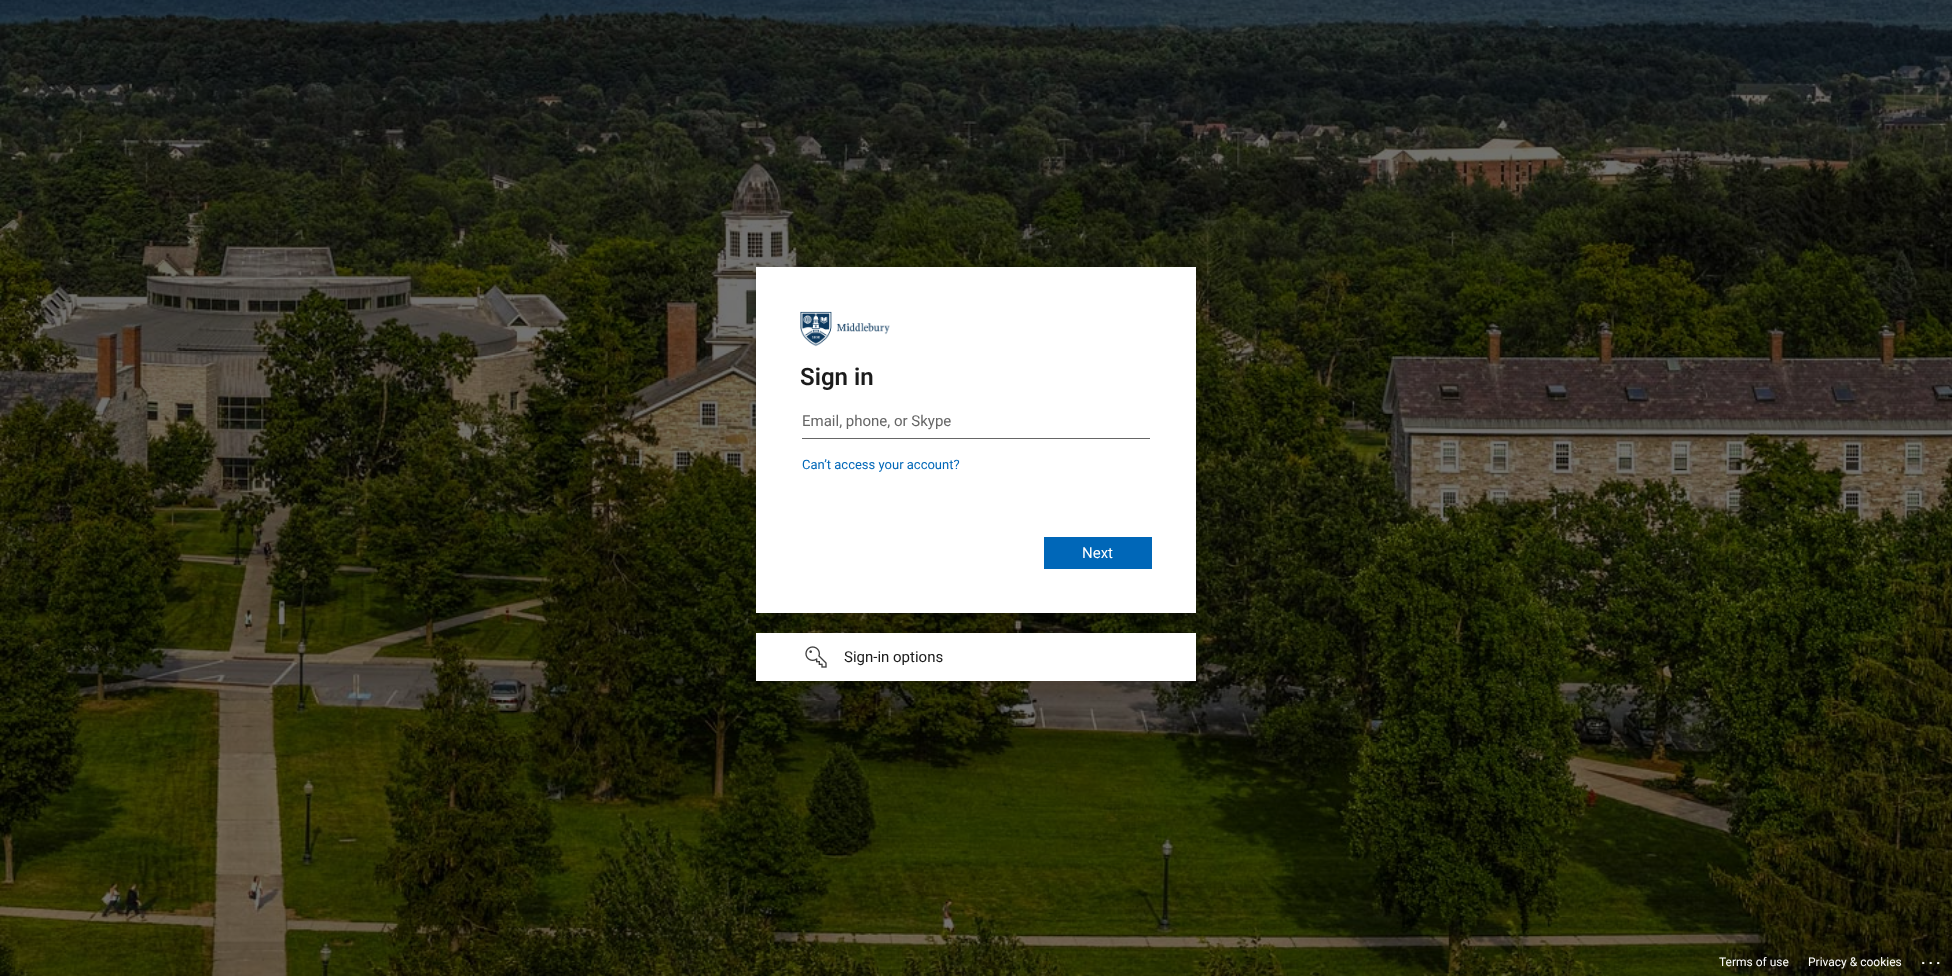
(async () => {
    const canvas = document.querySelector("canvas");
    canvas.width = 1952;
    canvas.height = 976;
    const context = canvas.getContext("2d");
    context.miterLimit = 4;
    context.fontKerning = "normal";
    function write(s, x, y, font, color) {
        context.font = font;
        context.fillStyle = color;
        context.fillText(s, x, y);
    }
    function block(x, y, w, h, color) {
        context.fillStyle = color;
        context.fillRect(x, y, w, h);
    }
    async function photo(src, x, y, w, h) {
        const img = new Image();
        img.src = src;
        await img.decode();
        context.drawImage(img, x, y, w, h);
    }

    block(0, 0, 1952, 976, "rgb(255, 255, 255)");
    await photo("media/1.png", 0, 0, 1952, 976);
    context.fillStyle = "rgba(0, 0, 0, 0.2)";
    context.filter = "blur(3px)";
    context.beginPath();
    context.rect(756, 269, 440, 346);
    context.fill();
    context.filter = "none";
    block(756, 267, 440, 346, "rgb(255, 255, 255)");
    await photo("media/2.png", 800, 311, 90, 36);
    write("Sign in", 800, 385, "600 24px Roboto", "rgb(27, 27, 27)");
    block(802, 438, 348, 1, "rgb(102, 102, 102)");
    write("Email, phone, or Skype", 802, 426, "15px Roboto", "rgb(102, 102, 102)");
    write("Can’t access your account?", 802, 469, "13px Roboto", "rgb(0, 103, 184)");
    block(1044, 537, 108, 32, "rgb(0, 103, 184)");
    write("Next", 1082, 558, "15px Roboto", "rgb(255, 255, 255)");
    context.fillStyle = "rgba(0, 0, 0, 0.2)";
    context.filter = "blur(3px)";
    context.beginPath();
    context.rect(756, 635, 440, 48);
    context.fill();
    context.filter = "none";
    block(756, 633, 440, 48, "rgb(255, 255, 255)");
    await photo("media/3.png", 805, 646, 22, 22);
    write("Sign-in options", 844, 662, "15px Roboto", "rgb(27, 27, 27)");
    write("Terms of use", 1719, 966, "12px Roboto", "rgb(255, 255, 255)");
    write("Privacy & cookies", 1808, 966, "12px Roboto", "rgb(255, 255, 255)");
    context.letterSpacing = "3px";
    write("...", 1921, 964, "600 16px Roboto", "rgb(255, 255, 255)");
})();
